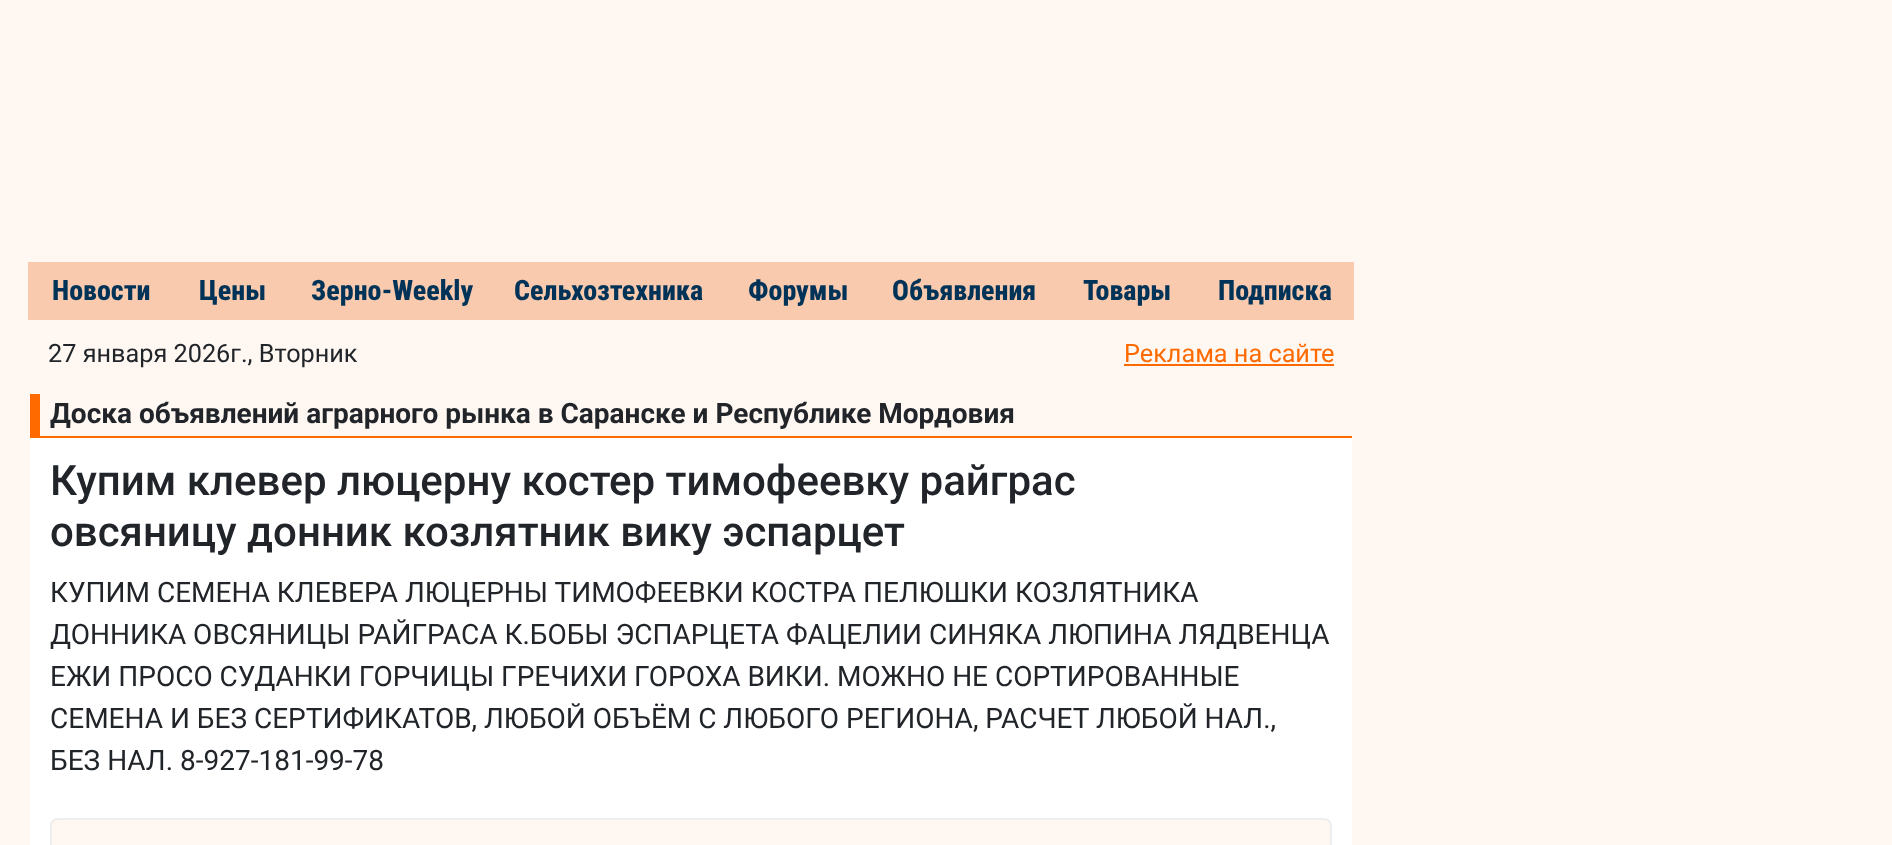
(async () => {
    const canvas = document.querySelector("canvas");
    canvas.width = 1892;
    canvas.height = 845;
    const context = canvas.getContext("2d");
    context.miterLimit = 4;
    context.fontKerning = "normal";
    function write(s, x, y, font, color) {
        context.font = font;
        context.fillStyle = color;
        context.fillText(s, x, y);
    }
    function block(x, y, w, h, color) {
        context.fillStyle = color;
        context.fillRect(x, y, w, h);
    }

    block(0, 0, 1892, 845, "rgb(255, 247, 242)");
    block(28, 262, 1326, 58, "rgb(249, 202, 173)");
    write("Новости", 52, 300, "800 28px Roboto Condensed", "rgb(0, 51, 87)");
    write("Цены", 199, 300, "800 28px Roboto Condensed", "rgb(0, 51, 87)");
    write("Зерно-Weekly", 311, 300, "800 28px Roboto Condensed", "rgb(0, 51, 87)");
    write("Сельхозтехника", 514, 300, "800 28px Roboto Condensed", "rgb(0, 51, 87)");
    write("Форумы", 748, 300, "800 28px Roboto Condensed", "rgb(0, 51, 87)");
    write("Объявления", 892, 300, "800 28px Roboto Condensed", "rgb(0, 51, 87)");
    write("Товары", 1083, 300, "800 28px Roboto Condensed", "rgb(0, 51, 87)");
    write("Подписка", 1218, 300, "800 28px Roboto Condensed", "rgb(0, 51, 87)");
    write("27 января 2026г., Вторник", 48, 362, "25.25px Roboto", "rgb(33, 37, 41)");
    write("Реклама на сайте", 1124, 362, "25.25px Roboto", "rgb(255, 106, 0)");
    block(1124, 364, 210, 2, "rgb(255, 106, 0)");
    block(40, 436, 1312, 2, "rgb(255, 106, 0)");
    block(30, 394, 10, 44, "rgb(255, 106, 0)");
    write("Доска объявлений аграрного рынка в Саранске и Республике Мордовия", 50, 423, "bold 28px Roboto", "rgb(33, 37, 41)");
    block(30, 438, 1322, 407, "rgb(255, 255, 255)");
    write("Купим клевер люцерну костер тимофеевку райграс", 50, 495, "500 42px Roboto", "rgb(33, 37, 41)");
    write("овсяницу донник козлятник вику эспарцет", 50, 546, "500 42px Roboto", "rgb(33, 37, 41)");
    write("КУПИМ СЕМЕНА КЛЕВЕРА ЛЮЦЕРНЫ ТИМОФЕЕВКИ КОСТРА ПЕЛЮШКИ КОЗЛЯТНИКА", 50, 602, "28px Roboto", "rgb(33, 37, 41)");
    write("ДОННИКА ОВСЯНИЦЫ РАЙГРАСА К.БОБЫ ЭСПАРЦЕТА ФАЦЕЛИИ СИНЯКА ЛЮПИНА ЛЯДВЕНЦА", 50, 644, "28px Roboto", "rgb(33, 37, 41)");
    write("ЕЖИ ПРОСО СУДАНКИ ГОРЧИЦЫ ГРЕЧИХИ ГОРОХА ВИКИ. МОЖНО НЕ СОРТИРОВАННЫЕ", 50, 686, "28px Roboto", "rgb(33, 37, 41)");
    write("СЕМЕНА И БЕЗ СЕРТИФИКАТОВ, ЛЮБОЙ ОБЪЁМ С ЛЮБОГО РЕГИОНА, РАСЧЕТ ЛЮБОЙ НАЛ.,", 50, 728, "28px Roboto", "rgb(33, 37, 41)");
    write("БЕЗ НАЛ. 8-927-181-99-78", 50, 770, "28px Roboto", "rgb(33, 37, 41)");
    context.fillStyle = "rgb(255, 247, 242)";
    context.beginPath();
    context.roundRect(51, 819, 1280, 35, 7);
    context.fill();
    context.strokeStyle = "rgb(238, 238, 238)";
    context.lineWidth = 2;
    context.stroke();
})();
